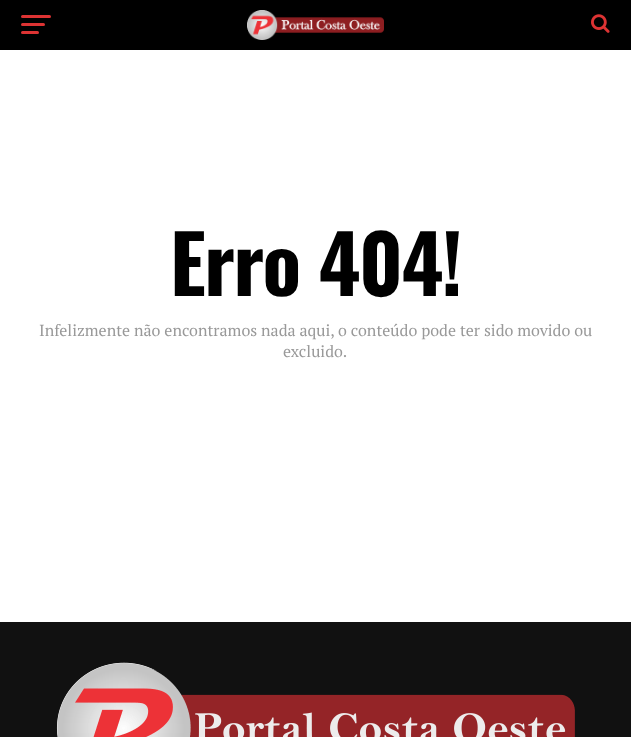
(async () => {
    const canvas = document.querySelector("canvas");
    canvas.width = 631;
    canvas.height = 737;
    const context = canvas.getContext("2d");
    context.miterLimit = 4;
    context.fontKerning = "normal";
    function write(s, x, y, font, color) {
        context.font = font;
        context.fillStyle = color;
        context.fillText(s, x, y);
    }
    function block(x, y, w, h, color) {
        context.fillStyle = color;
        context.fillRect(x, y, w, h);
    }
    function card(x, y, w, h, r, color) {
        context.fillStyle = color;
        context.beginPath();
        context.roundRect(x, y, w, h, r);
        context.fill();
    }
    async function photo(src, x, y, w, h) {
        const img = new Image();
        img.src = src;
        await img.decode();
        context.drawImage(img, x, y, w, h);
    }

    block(0, 0, 631, 737, "rgb(255, 255, 255)");
    block(0, 0, 631, 50, "rgb(0, 0, 0)");
    card(21, 15, 30, 3, 1.5, "rgb(221, 51, 51)");
    card(21, 23, 24, 3, 1.5, "rgb(221, 51, 51)");
    card(21, 31, 18, 3, 1.5, "rgb(221, 51, 51)");
    await photo("media/1.png", 247, 10, 137, 30);
    await photo("media/2.png", 591, 14, 19, 19);
    context.letterSpacing = "-1.5px";
    write("Erro 404!", 170, 296, "bold 80px Oswald", "rgb(0, 0, 0)");
    context.letterSpacing = "0px";
    write("Infelizmente não encontramos nada aqui, o conteúdo pode ter sido movido ou", 39, 336, "16px PT Serif", "rgb(153, 153, 153)");
    write("excluido.", 283, 357, "16px PT Serif", "rgb(153, 153, 153)");
    block(0, 622, 631, 115, "rgb(17, 17, 17)");
    await photo("media/3.png", 56, 662, 519, 75);
})();
